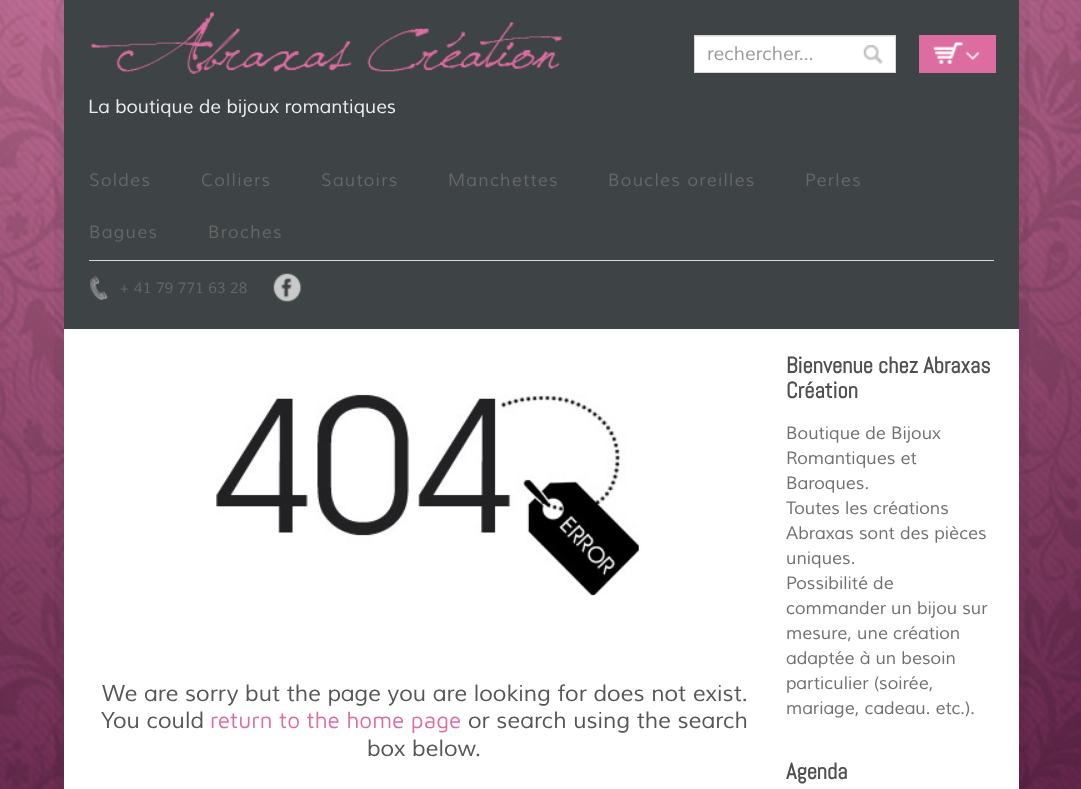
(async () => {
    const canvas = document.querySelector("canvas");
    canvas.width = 1081;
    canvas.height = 789;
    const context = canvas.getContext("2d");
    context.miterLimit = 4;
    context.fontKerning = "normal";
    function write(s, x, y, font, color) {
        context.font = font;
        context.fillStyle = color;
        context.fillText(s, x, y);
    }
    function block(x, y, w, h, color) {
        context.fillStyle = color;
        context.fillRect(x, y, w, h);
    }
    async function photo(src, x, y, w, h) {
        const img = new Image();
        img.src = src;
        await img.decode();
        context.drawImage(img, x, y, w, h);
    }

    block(0, 0, 1081, 789, "rgb(255, 255, 255)");
    await photo("media/1.png", 0, 0, 1081, 789);
    context.strokeStyle = "rgba(0, 0, 0, 0.04)";
    context.lineWidth = 10;
    context.strokeRect(59, -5, 965, 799);
    block(64, 329, 955, 460, "rgb(255, 255, 255)");
    block(64, 0, 955, 329, "rgb(62, 67, 69)");
    block(695, 37, 200, 35, "rgb(255, 255, 255)");
    await photo("media/2.png", 863, 45, 20, 19);
    block(695, 36, 200, 1, "rgb(236, 236, 236)");
    context.strokeStyle = "rgb(215, 215, 215)";
    context.lineWidth = 1;
    context.strokeRect(694.5, 35.5, 201, 37);
    write("rechercher…", 707, 60, "italic 18.75px Muli", "rgb(153, 153, 153)");
    block(919, 35, 77, 38, "rgb(221, 109, 161)");
    await photo("media/3.png", 933, 42, 47, 23);
    await photo("media/4.png", 91, 12, 472, 62);
    write("La boutique de bijoux romantiques", 88, 113, "italic 18.75px Muli", "rgb(237, 237, 237)");
    block(89, 260, 905, 1, "rgb(215, 215, 215)");
    context.letterSpacing = "1.25px";
    write("Soldes", 89, 186, "italic 17.5px Muli", "rgb(102, 103, 103)");
    write("Colliers", 201, 186, "italic 17.5px Muli", "rgb(102, 103, 103)");
    write("Sautoirs", 321, 186, "italic 17.5px Muli", "rgb(102, 103, 103)");
    write("Manchettes", 448, 186, "italic 17.5px Muli", "rgb(102, 103, 103)");
    write("Boucles oreilles", 608, 186, "italic 17.5px Muli", "rgb(102, 103, 103)");
    write("Perles", 805, 186, "italic 17.5px Muli", "rgb(102, 103, 103)");
    write("Bagues", 89, 238, "italic 17.5px Muli", "rgb(102, 103, 103)");
    write("Broches", 208, 238, "italic 17.5px Muli", "rgb(102, 103, 103)");
    await photo("media/5.png", 90, 276, 18, 24);
    context.letterSpacing = "0px";
    write("+ 41 79 771 63 28", 119, 293, "italic 15px Muli", "rgb(102, 103, 103)");
    await photo("media/6.png", 273, 273, 29, 29);
    await photo("media/7.png", 216, 394, 425, 202);
    write("We are sorry but the page you are looking for does not exist.", 102, 701, "italic 22.5px Muli", "rgb(88, 85, 85)");
    write("You could", 101, 728, "italic 22.5px Muli", "rgb(88, 85, 85)");
    write("return to the home page", 210, 728, "22.5px Maven Pro", "rgb(221, 109, 161)");
    write("or search using the search", 468, 728, "italic 22.5px Muli", "rgb(88, 85, 85)");
    write("box below.", 367, 756, "italic 22.5px Muli", "rgb(88, 85, 85)");
    write("Bienvenue chez Abraxas", 786, 373, "bold 22.5px Abel", "rgb(78, 79, 79)");
    write("Création", 786, 398, "bold 22.5px Abel", "rgb(78, 79, 79)");
    write("Boutique de Bijoux", 786, 439, "italic 17.5px Muli", "rgb(112, 112, 112)");
    write("Romantiques et", 786, 464, "italic 17.5px Muli", "rgb(112, 112, 112)");
    write("Baroques.", 786, 489, "italic 17.5px Muli", "rgb(112, 112, 112)");
    write("Toutes les créations", 786, 514, "italic 17.5px Muli", "rgb(112, 112, 112)");
    write("Abraxas sont des pièces", 786, 539, "italic 17.5px Muli", "rgb(112, 112, 112)");
    write("uniques.", 786, 564, "italic 17.5px Muli", "rgb(112, 112, 112)");
    write("Possibilité de", 786, 589, "italic 17.5px Muli", "rgb(112, 112, 112)");
    write("commander un bijou sur", 786, 614, "italic 17.5px Muli", "rgb(112, 112, 112)");
    write("mesure, une création", 786, 639, "italic 17.5px Muli", "rgb(112, 112, 112)");
    write("adaptée à un besoin", 786, 664, "italic 17.5px Muli", "rgb(112, 112, 112)");
    write("particulier (soirée,", 786, 689, "italic 17.5px Muli", "rgb(112, 112, 112)");
    write("mariage, cadeau. etc.).", 786, 714, "italic 17.5px Muli", "rgb(112, 112, 112)");
    write("Agenda", 786, 779, "bold 22.5px Abel", "rgb(78, 79, 79)");
})();
